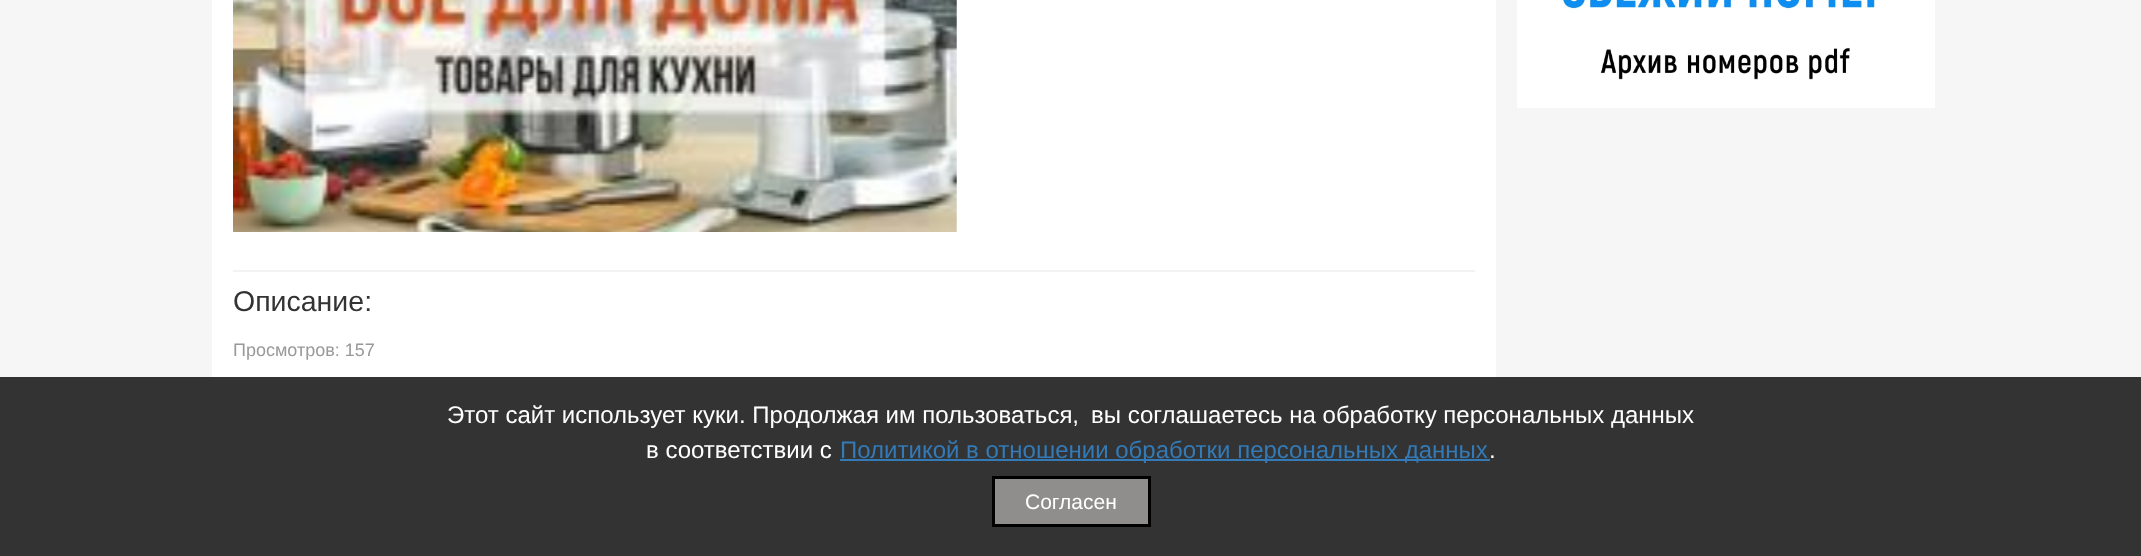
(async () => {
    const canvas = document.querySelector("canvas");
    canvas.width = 2141;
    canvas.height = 556;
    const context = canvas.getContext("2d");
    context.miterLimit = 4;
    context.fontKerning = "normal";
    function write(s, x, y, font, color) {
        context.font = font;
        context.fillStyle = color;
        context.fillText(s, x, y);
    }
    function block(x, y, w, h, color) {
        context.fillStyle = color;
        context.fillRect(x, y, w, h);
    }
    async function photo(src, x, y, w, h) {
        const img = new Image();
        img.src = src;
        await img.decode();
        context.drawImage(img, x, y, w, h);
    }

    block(0, 0, 2141, 556, "rgb(246, 246, 246)");
    block(1517, 0, 418, 108, "rgb(255, 255, 255)");
    await photo("media/1.png", 1560, 0, 315, 80);
    block(212, 0, 1284, 377, "rgb(255, 255, 255)");
    await photo("media/2.png", 233, 0, 724, 232);
    block(233, 270, 1242, 2, "rgb(243, 243, 243)");
    write("Описание:", 233, 311, "28.5px Liberation Sans", "rgb(51, 51, 51)");
    write("Просмотров: 157", 233, 356, "18px Liberation Sans", "rgb(153, 153, 153)");
    block(0, 377, 2141, 179, "rgb(51, 51, 51)");
    write("Этот сайт использует куки. Продолжая им пользоваться,", 447, 423, "24px Liberation Sans", "rgb(255, 255, 255)");
    write("вы соглашаетесь на обработку персональных данных", 1091, 423, "24px Liberation Sans", "rgb(255, 255, 255)");
    write("в соответствии с", 646, 458, "24px Liberation Sans", "rgb(255, 255, 255)");
    block(840, 459, 650, 2, "rgb(51, 122, 183)");
    write("Политикой в отношении обработки персональных данных", 840, 458, "24px Liberation Sans", "rgb(51, 122, 183)");
    write(".", 1489, 458, "24px Liberation Sans", "rgb(255, 255, 255)");
    context.fillStyle = "rgb(144, 142, 140)";
    context.beginPath();
    context.rect(993.5, 477.5, 156, 48);
    context.fill();
    context.strokeStyle = "rgb(0, 0, 0)";
    context.lineWidth = 3;
    context.stroke();
    write("Согласен", 1025, 509, "21px Liberation Sans", "rgb(255, 255, 255)");
})();
